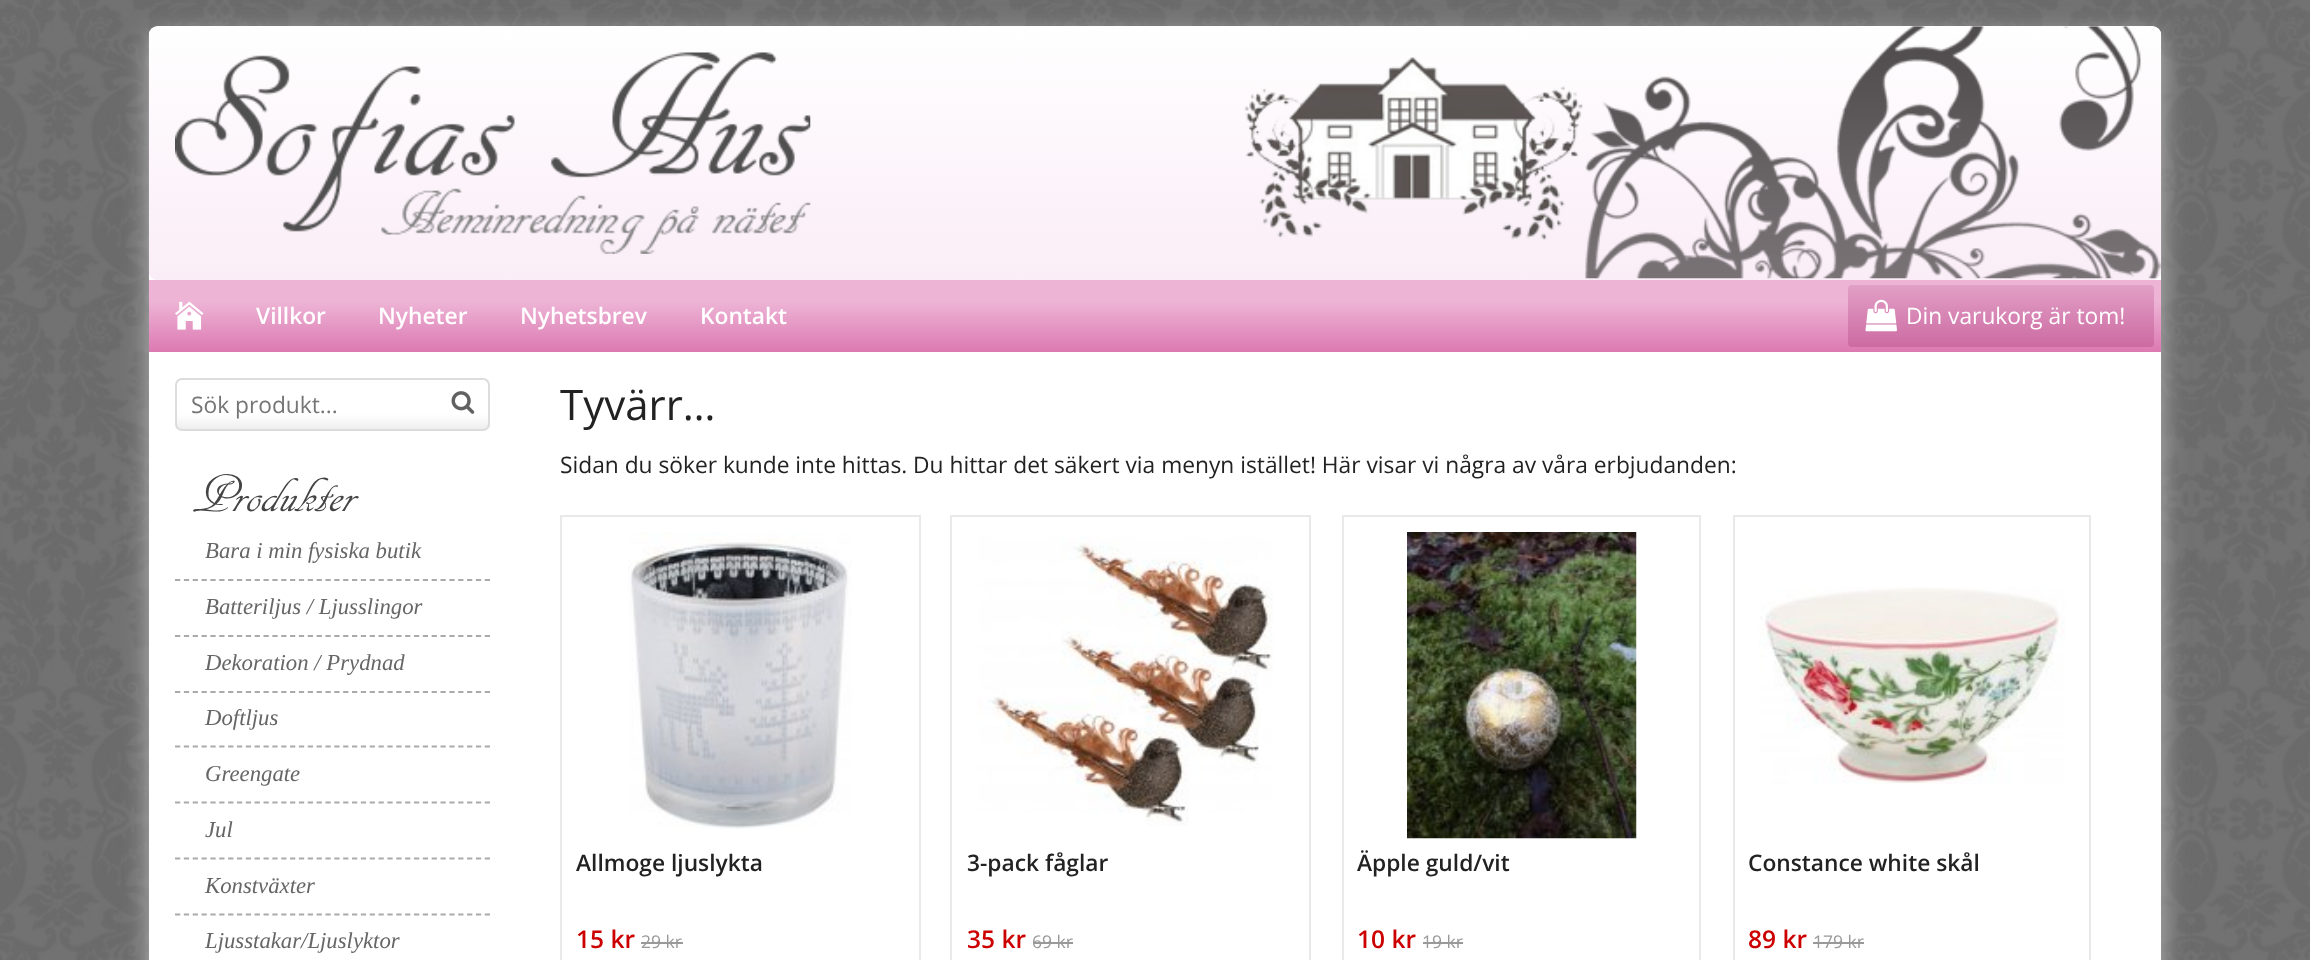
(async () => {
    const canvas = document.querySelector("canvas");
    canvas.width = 2310;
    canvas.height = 960;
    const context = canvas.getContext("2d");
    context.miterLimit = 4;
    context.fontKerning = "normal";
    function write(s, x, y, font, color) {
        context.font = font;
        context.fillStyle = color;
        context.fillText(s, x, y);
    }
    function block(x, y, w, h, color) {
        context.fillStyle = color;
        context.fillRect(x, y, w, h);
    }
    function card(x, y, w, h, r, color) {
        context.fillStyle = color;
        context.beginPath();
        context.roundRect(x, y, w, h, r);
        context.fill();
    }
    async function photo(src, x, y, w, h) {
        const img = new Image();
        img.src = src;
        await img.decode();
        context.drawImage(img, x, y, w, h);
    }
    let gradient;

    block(0, 0, 2310, 960, "rgb(255, 255, 255)");
    await photo("media/1.png", 0, 0, 2310, 960);
    context.fillStyle = "rgb(181, 181, 181)";
    context.filter = "blur(13px)";
    context.beginPath();
    context.roundRect(149, 35, 2012, 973, 9);
    context.fill();
    context.filter = "none";
    card(149, 26, 2012, 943, 9, "rgb(255, 255, 255)");
    await photo("media/2.png", 148, 26, 2014, 254);
    await photo("media/3.png", 175, 52, 636, 202);
    await photo("media/4.png", 1244, 57, 339, 184);
    gradient = context.createLinearGradient(1155, 280, 1155, 352);
    gradient.addColorStop(0.3, "rgb(237, 180, 213)");
    gradient.addColorStop(1, "rgb(220, 121, 178)");
    context.fillStyle = gradient;
    context.fillRect(149, 280, 2012, 72);
    await photo("media/5.png", 175, 301, 29, 29);
    write("Villkor", 256, 324, "600 22.75px Open Sans", "rgb(255, 255, 255)");
    write("Nyheter", 378, 324, "600 22.75px Open Sans", "rgb(255, 255, 255)");
    write("Nyhetsbrev", 520, 324, "600 22.75px Open Sans", "rgb(255, 255, 255)");
    write("Kontakt", 700, 324, "600 22.75px Open Sans", "rgb(255, 255, 255)");
    gradient = context.createLinearGradient(2001, 285, 2001, 347);
    gradient.addColorStop(0, "rgb(226, 160, 198)");
    gradient.addColorStop(1, "rgb(204, 106, 162)");
    context.fillStyle = gradient;
    context.beginPath();
    context.roundRect(1848, 285, 306, 62, 4);
    context.fill();
    await photo("media/6.png", 1865, 299, 32, 33);
    write("Din varukorg är tom!", 1906, 324, "22.75px Open Sans", "rgb(255, 255, 255)");
    context.save();
    context.beginPath();
    context.roundRect(175, 378, 315, 53, 7);
    context.clip();
    gradient = context.createLinearGradient(333, 380, 333, 429);
    gradient.addColorStop(0.7, "rgb(255, 255, 255)");
    gradient.addColorStop(1, "rgb(238, 238, 238)");
    context.fillStyle = gradient;
    context.fillRect(175, 380, 315, 49);
    context.restore();
    context.beginPath();
    context.roundRect(176, 379, 313, 51, 6);
    context.strokeStyle = "rgb(220, 220, 220)";
    context.lineWidth = 2;
    context.stroke();
    write("Sök produkt...", 191, 413, "22.75px Open Sans", "rgb(117, 117, 117)");
    await photo("media/7.png", 451, 391, 24, 23);
    write("Produkter", 193, 511, "100 56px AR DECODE", "rgb(68, 68, 68)");
    context.beginPath();
    context.moveTo(175, 580);
    context.lineTo(490, 580);
    context.strokeStyle = "rgb(170, 170, 170)";
    context.lineWidth = 1.8;
    context.setLineDash([5.25, 3.6]);
    context.stroke();
    write("Bara i min fysiska butik", 205, 558, "italic 22.75px Liberation Serif", "rgb(102, 102, 102)");
    context.beginPath();
    context.moveTo(175, 636);
    context.lineTo(490, 636);
    context.stroke();
    write("Batteriljus / Ljusslingor", 205, 614, "italic 22.75px Liberation Serif", "rgb(102, 102, 102)");
    context.beginPath();
    context.moveTo(175, 692);
    context.lineTo(490, 692);
    context.stroke();
    write("Dekoration / Prydnad", 205, 670, "italic 22.75px Liberation Serif", "rgb(102, 102, 102)");
    context.beginPath();
    context.moveTo(175, 746.5);
    context.lineTo(490, 746.5);
    context.stroke();
    write("Doftljus", 205, 725, "italic 22.75px Liberation Serif", "rgb(102, 102, 102)");
    context.beginPath();
    context.moveTo(175, 802.5);
    context.lineTo(490, 802.5);
    context.stroke();
    write("Greengate", 205, 781, "italic 22.75px Liberation Serif", "rgb(102, 102, 102)");
    context.beginPath();
    context.moveTo(175, 858.5);
    context.lineTo(490, 858.5);
    context.stroke();
    write("Jul", 205, 837, "italic 22.75px Liberation Serif", "rgb(102, 102, 102)");
    context.beginPath();
    context.moveTo(175, 914.5);
    context.lineTo(490, 914.5);
    context.stroke();
    write("Konstväxter", 205, 893, "italic 22.75px Liberation Serif", "rgb(102, 102, 102)");
    write("Ljusstakar/Ljuslyktor", 205, 948, "italic 22.75px Liberation Serif", "rgb(102, 102, 102)");
    write("Tyvärr…", 560, 420, "42px Open Sans", "rgb(34, 34, 34)");
    write("Sidan du söker kunde inte hittas. Du hittar det säkert via menyn istället! Här visar vi några av våra erbjudanden:", 560, 473, "22.75px Open Sans", "rgb(34, 34, 34)");
    context.strokeStyle = "rgb(233, 233, 233)";
    context.lineWidth = 2;
    context.setLineDash([]);
    context.strokeRect(561, 516, 359, 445);
    await photo("media/8.png", 628, 532, 224, 297);
    write("Allmoge ljuslykta", 576, 871, "600 22.75px Open Sans", "rgb(34, 34, 34)");
    write("15 kr", 576, 948, "600 24.5px Open Sans", "rgb(204, 0, 0)");
    write("29 kr", 641, 948, "17.5px Open Sans", "rgb(153, 153, 153)");
    block(641, 942, 42, 2, "rgb(153, 153, 153)");
    context.strokeRect(951, 516, 359, 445);
    await photo("media/9.png", 978, 535, 295, 291);
    write("3-pack fåglar", 967, 871, "600 22.75px Open Sans", "rgb(34, 34, 34)");
    write("35 kr", 967, 948, "600 24.5px Open Sans", "rgb(204, 0, 0)");
    write("69 kr", 1032, 948, "17.5px Open Sans", "rgb(153, 153, 153)");
    block(1033, 942, 40, 2, "rgb(153, 153, 153)");
    context.strokeRect(1343, 516, 357, 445);
    await photo("media/10.png", 1407, 532, 230, 307);
    write("Äpple guld/vit", 1357, 871, "600 22.75px Open Sans", "rgb(34, 34, 34)");
    write("10 kr", 1357, 948, "600 24.5px Open Sans", "rgb(204, 0, 0)");
    write("19 kr", 1422, 948, "17.5px Open Sans", "rgb(153, 153, 153)");
    block(1423, 942, 40, 2, "rgb(153, 153, 153)");
    context.strokeRect(1734, 516, 356, 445);
    await photo("media/11.png", 1759, 587, 306, 197);
    write("Constance white skål", 1748, 871, "600 22.75px Open Sans", "rgb(34, 34, 34)");
    write("89 kr", 1748, 948, "600 24.5px Open Sans", "rgb(204, 0, 0)");
    write("179 kr", 1813, 948, "17.5px Open Sans", "rgb(153, 153, 153)");
    block(1813, 942, 51, 2, "rgb(153, 153, 153)");
})();
